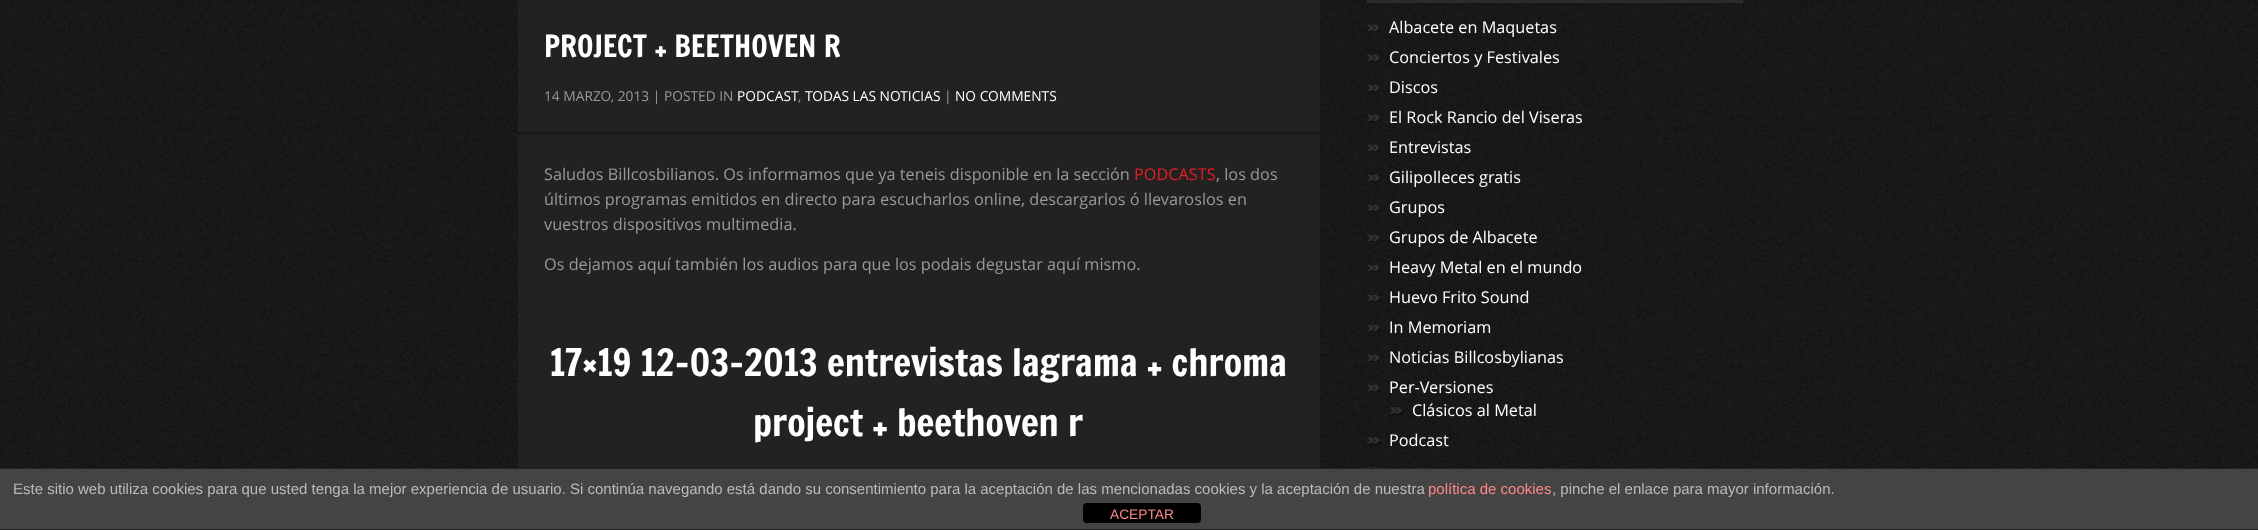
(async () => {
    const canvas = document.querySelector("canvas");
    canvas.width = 2258;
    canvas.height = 530;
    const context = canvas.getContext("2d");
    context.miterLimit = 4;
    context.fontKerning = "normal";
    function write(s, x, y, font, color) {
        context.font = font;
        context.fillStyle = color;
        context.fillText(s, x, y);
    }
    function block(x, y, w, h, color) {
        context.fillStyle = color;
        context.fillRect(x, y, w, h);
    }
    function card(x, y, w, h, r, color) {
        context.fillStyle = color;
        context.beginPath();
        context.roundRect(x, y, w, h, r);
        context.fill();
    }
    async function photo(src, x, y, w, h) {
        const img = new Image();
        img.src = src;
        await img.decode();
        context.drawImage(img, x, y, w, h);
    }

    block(0, 0, 2258, 530, "rgb(255, 255, 255)");
    await photo("media/1.png", 0, 0, 2258, 468);
    block(518, 0, 802, 468, "rgb(34, 34, 34)");
    write("PROJECT + BEETHOVEN R", 544, 57, "30px Francois One", "rgb(255, 255, 255)");
    write("14 MARZO, 2013 | POSTED IN", 544, 101, "13.75px Open Sans", "rgb(153, 153, 153)");
    write("PODCAST", 737, 101, "13.75px Open Sans", "rgb(255, 255, 255)");
    write(",", 798, 101, "13.75px Open Sans", "rgb(153, 153, 153)");
    write("TODAS LAS NOTICIAS", 805, 101, "13.75px Open Sans", "rgb(255, 255, 255)");
    write("|", 944, 101, "13.75px Open Sans", "rgb(153, 153, 153)");
    write("NO COMMENTS", 955, 101, "13.75px Open Sans", "rgb(255, 255, 255)");
    block(517, 132, 803, 3, "rgb(24, 24, 24)");
    write("Saludos Billcosbilianos. Os informamos que ya teneis disponible en la sección", 544, 180, "16.25px Open Sans", "rgb(153, 153, 153)");
    write("PODCASTS", 1134, 180, "16.25px Open Sans", "rgb(237, 28, 36)");
    write(", los dos", 1216, 180, "16.25px Open Sans", "rgb(153, 153, 153)");
    write("últimos programas emitidos en directo para escucharlos online, descargarlos ó llevaroslos en", 544, 205, "16.25px Open Sans", "rgb(153, 153, 153)");
    write("vuestros dispositivos multimedia.", 544, 230, "16.25px Open Sans", "rgb(153, 153, 153)");
    write("Os dejamos aquí también los audios para que los podais degustar aquí mismo.", 544, 270, "16.25px Open Sans", "rgb(153, 153, 153)");
    write("17×19 12-03-2013 entrevistas lagrama + chroma", 550, 376, "37.5px Francois One", "rgb(255, 255, 255)");
    write("project + beethoven r", 753, 436, "37.5px Francois One", "rgb(255, 255, 255)");
    block(1367, 0, 376, 3, "rgb(43, 43, 43)");
    await photo("media/2.png", 1367, 24, 14, 8);
    write("Albacete en Maquetas", 1389, 33, "16.25px Open Sans", "rgb(255, 255, 255)");
    await photo("media/3.png", 1367, 54, 14, 8);
    write("Conciertos y Festivales", 1389, 63, "16.25px Open Sans", "rgb(255, 255, 255)");
    await photo("media/4.png", 1367, 84, 14, 8);
    write("Discos", 1389, 93, "16.25px Open Sans", "rgb(255, 255, 255)");
    await photo("media/5.png", 1367, 114, 14, 8);
    write("El Rock Rancio del Viseras", 1389, 123, "16.25px Open Sans", "rgb(255, 255, 255)");
    await photo("media/6.png", 1367, 144, 14, 8);
    write("Entrevistas", 1389, 153, "16.25px Open Sans", "rgb(255, 255, 255)");
    await photo("media/7.png", 1367, 174, 14, 8);
    write("Gilipolleces gratis", 1389, 183, "16.25px Open Sans", "rgb(255, 255, 255)");
    await photo("media/8.png", 1367, 204, 14, 8);
    write("Grupos", 1389, 213, "16.25px Open Sans", "rgb(255, 255, 255)");
    await photo("media/9.png", 1367, 234, 14, 8);
    write("Grupos de Albacete", 1389, 243, "16.25px Open Sans", "rgb(255, 255, 255)");
    await photo("media/10.png", 1367, 264, 14, 8);
    write("Heavy Metal en el mundo", 1389, 273, "16.25px Open Sans", "rgb(255, 255, 255)");
    await photo("media/11.png", 1367, 294, 14, 8);
    write("Huevo Frito Sound", 1389, 303, "16.25px Open Sans", "rgb(255, 255, 255)");
    await photo("media/12.png", 1367, 324, 14, 8);
    write("In Memoriam", 1389, 333, "16.25px Open Sans", "rgb(255, 255, 255)");
    await photo("media/13.png", 1367, 354, 14, 8);
    write("Noticias Billcosbylianas", 1389, 363, "16.25px Open Sans", "rgb(255, 255, 255)");
    await photo("media/14.png", 1367, 384, 14, 8);
    write("Per-Versiones", 1389, 393, "16.25px Open Sans", "rgb(255, 255, 255)");
    await photo("media/15.png", 1390, 407, 14, 8);
    write("Clásicos al Metal", 1412, 416, "16.25px Open Sans", "rgb(255, 255, 255)");
    await photo("media/16.png", 1367, 437, 14, 8);
    write("Podcast", 1389, 446, "16.25px Open Sans", "rgb(255, 255, 255)");
    await photo("media/17.png", 1367, 467, 11, 1);
    block(0, 469, 2258, 60, "rgb(68, 68, 68)");
    block(0, 468, 2258, 1, "rgb(34, 34, 34)");
    block(0, 529, 2258, 1, "rgb(34, 34, 34)");
    write("Este sitio web utiliza cookies para que usted tenga la mejor experiencia de usuario. Si continúa navegando está dando su consentimiento para la aceptación de las mencionadas cookies y la aceptación de nuestra", 13, 494, "15px Liberation Sans", "rgb(187, 187, 187)");
    write("política de cookies", 1428, 494, "15px Liberation Sans", "rgb(255, 136, 136)");
    write(", pinche el enlace para mayor información.", 1552, 494, "15px Liberation Sans", "rgb(187, 187, 187)");
    card(1083, 503, 118, 20, 4, "rgb(0, 0, 0)");
    write("ACEPTAR", 1110, 519, "13.75px Liberation Sans", "rgb(255, 136, 136)");
})();
